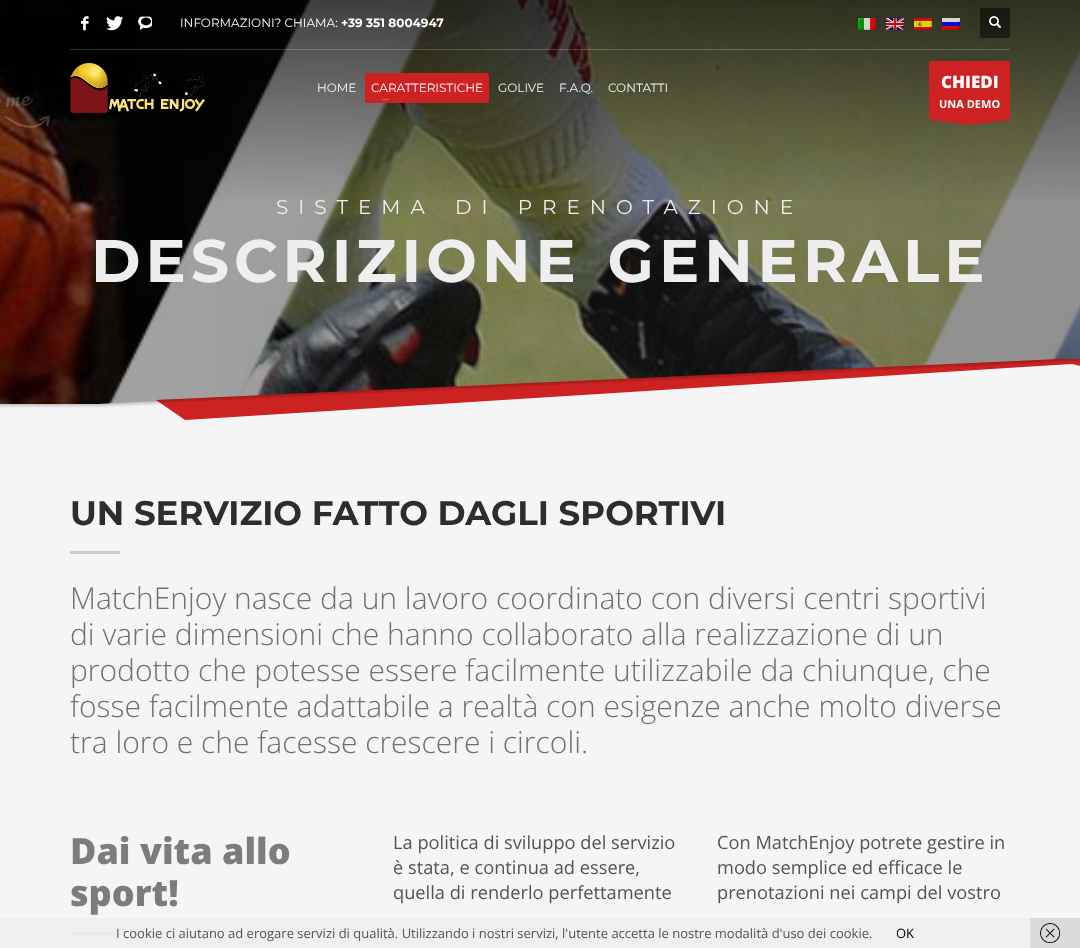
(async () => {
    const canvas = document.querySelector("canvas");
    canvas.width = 1080;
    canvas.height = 948;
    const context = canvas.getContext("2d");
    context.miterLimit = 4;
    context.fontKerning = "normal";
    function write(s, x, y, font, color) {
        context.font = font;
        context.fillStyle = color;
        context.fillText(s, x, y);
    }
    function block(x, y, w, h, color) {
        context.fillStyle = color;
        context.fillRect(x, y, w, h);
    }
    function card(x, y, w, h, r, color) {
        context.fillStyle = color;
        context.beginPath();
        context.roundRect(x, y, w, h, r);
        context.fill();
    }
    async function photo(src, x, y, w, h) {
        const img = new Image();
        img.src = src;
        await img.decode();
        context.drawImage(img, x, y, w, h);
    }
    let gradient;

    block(0, 0, 1080, 948, "rgb(245, 245, 245)");
    await photo("media/11.png", 0, 0, 1080, 404);
    context.letterSpacing = "10px";
    context.wordSpacing = "5px";
    write("SISTEMA DI PRENOTAZIONE", 276, 214, "20px Montserrat", "rgb(238, 238, 238)");
    gradient = context.createLinearGradient(540, 0, 540, 207);
    gradient.addColorStop(0, "rgba(0, 0, 0, 0.6)");
    gradient.addColorStop(1, "rgba(0, 0, 0, 0)");
    context.fillStyle = gradient;
    context.fillRect(0, 0, 1080, 200);
    await photo("media/1.png", 81, 16, 8, 15);
    await photo("media/2.png", 106, 16, 17, 15);
    await photo("media/3.png", 138, 16, 14, 14);
    context.letterSpacing = "0px";
    context.wordSpacing = "0px";
    write("INFORMAZIONI? CHIAMA:", 180, 27, "12px Montserrat", "rgb(255, 255, 255)");
    write("+39 351 8004947", 341, 27, "bold 12px Montserrat", "rgb(255, 255, 255)");
    await photo("media/4.png", 858, 18, 18, 12);
    await photo("media/5.png", 886, 18, 18, 12);
    await photo("media/6.png", 914, 18, 18, 12);
    await photo("media/7.png", 942, 18, 18, 12);
    card(980, 8, 30, 30, 2, "rgba(0, 0, 0, 0.5)");
    await photo("media/8.png", 989, 16, 12, 12);
    block(70, 49, 940, 1, "rgba(255, 255, 255, 0.2)");
    await photo("media/9.png", 0, 96, 50, 32);
    await photo("media/10.png", 70, 63, 135, 50);
    write("HOME", 317, 92, "12px Montserrat", "rgb(245, 245, 245)");
    card(365, 73, 124, 30, 2, "rgb(205, 33, 34)");
    write("CARATTERISTICHE", 371, 92, "12px Montserrat", "rgb(255, 255, 255)");
    block(382, 99, 7, 1, "rgb(219, 95, 96)");
    write("GOLIVE", 498, 92, "12px Montserrat", "rgb(245, 245, 245)");
    write("F.A.Q.", 559, 92, "12px Montserrat", "rgb(245, 245, 245)");
    write("CONTATTI", 608, 92, "12px Montserrat", "rgb(245, 245, 245)");
    card(929, 61, 81, 59, 2, "rgb(205, 33, 34)");
    write("CHIEDI", 941, 88, "800 17px Open Sans", "rgb(255, 255, 255)");
    write("UNA DEMO", 939, 108, "bold 11px Open Sans", "rgb(255, 255, 255)");
    context.fillStyle = "rgb(205, 33, 34)";
    context.beginPath();
    context.moveTo(1010, 120);
    context.lineTo(970, 125);
    context.lineTo(929, 120);
    context.closePath();
    context.fill("evenodd");
    context.letterSpacing = "5px";
    context.wordSpacing = "5px";
    write("DESCRIZIONE GENERALE", 91, 282, "bold 60px Montserrat", "rgb(238, 238, 238)");
    await photo("media/12.png", 0, 359, 1080, 64);
    context.letterSpacing = "0px";
    context.wordSpacing = "0px";
    write("UN SERVIZIO FATTO DAGLI SPORTIVI", 70, 525, "bold 34px Montserrat", "rgb(45, 45, 45)");
    block(70, 551, 50, 3, "rgb(204, 204, 204)");
    write("MatchEnjoy nasce da un lavoro coordinato con diversi centri sportivi", 70, 609, "300 30px Open Sans", "rgb(112, 112, 112)");
    write("di varie dimensioni che hanno collaborato alla realizzazione di un", 70, 645, "300 30px Open Sans", "rgb(112, 112, 112)");
    write("prodotto che potesse essere facilmente utilizzabile da chiunque, che", 70, 681, "300 30px Open Sans", "rgb(112, 112, 112)");
    write("fosse facilmente adattabile a realtà con esigenze anche molto diverse", 70, 717, "300 30px Open Sans", "rgb(112, 112, 112)");
    write("tra loro e che facesse crescere i circoli.", 70, 753, "300 30px Open Sans", "rgb(112, 112, 112)");
    write("Dai vita allo", 70, 864, "800 36px Open Sans", "rgb(124, 124, 124)");
    write("sport!", 70, 906, "800 36px Open Sans", "rgb(124, 124, 124)");
    block(70, 932, 50, 3, "rgb(204, 204, 204)");
    write("La politica di sviluppo del servizio", 393, 849, "18.25px Open Sans", "rgb(83, 83, 83)");
    write("è stata, e continua ad essere,", 393, 874, "18.25px Open Sans", "rgb(83, 83, 83)");
    write("quella di renderlo perfettamente", 393, 899, "18.25px Open Sans", "rgb(83, 83, 83)");
    write("Con MatchEnjoy potrete gestire in", 717, 849, "18.25px Open Sans", "rgb(83, 83, 83)");
    write("modo semplice ed efficace le", 717, 874, "18.25px Open Sans", "rgb(83, 83, 83)");
    write("prenotazioni nei campi del vostro", 717, 899, "18.25px Open Sans", "rgb(83, 83, 83)");
    block(0, 918, 1030, 30, "rgba(238, 238, 238, 0.9)");
    write("I cookie ci aiutano ad erogare servizi di qualità. Utilizzando i nostri servizi, l'utente accetta le nostre modalità d'uso dei cookie.", 116, 938, "13px Open Sans", "rgb(83, 83, 83)");
    write("OK", 896, 938, "13px Open Sans", "rgb(0, 0, 0)");
    block(1030, 918, 50, 30, "rgb(218, 218, 218)");
    await photo("media/13.png", 1040, 923, 20, 20);
})();
